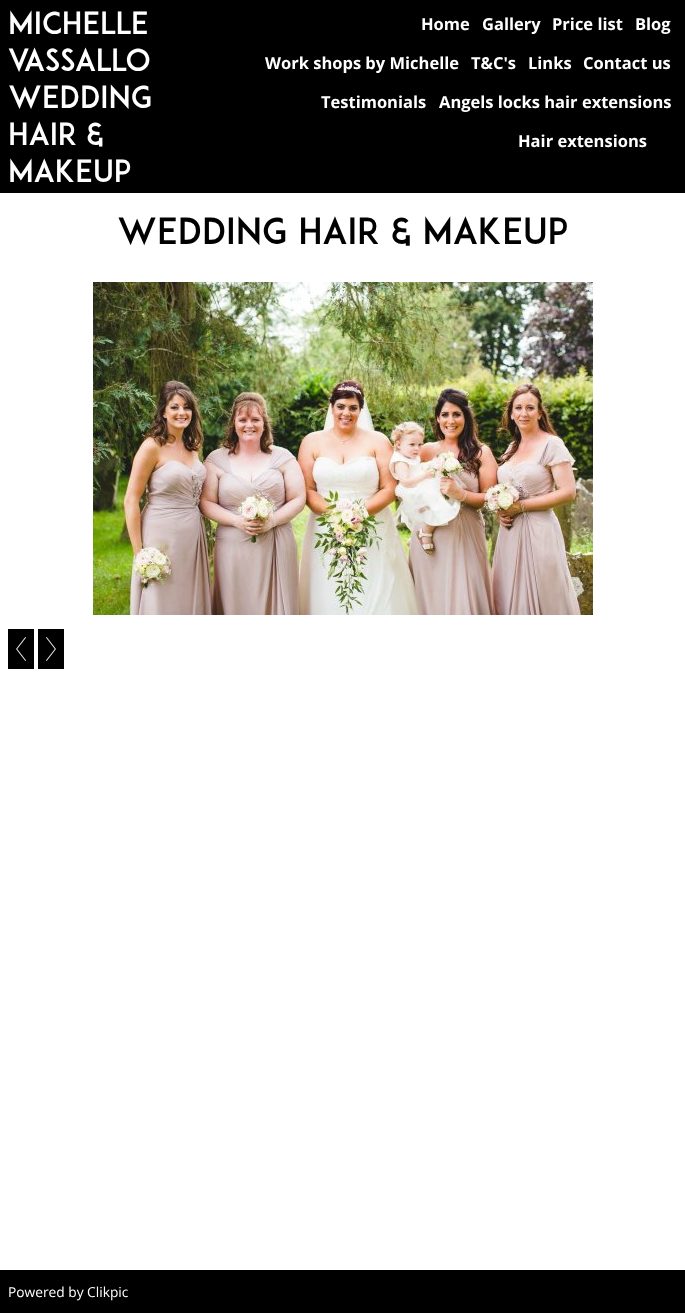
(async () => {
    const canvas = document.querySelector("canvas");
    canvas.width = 685;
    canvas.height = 1313;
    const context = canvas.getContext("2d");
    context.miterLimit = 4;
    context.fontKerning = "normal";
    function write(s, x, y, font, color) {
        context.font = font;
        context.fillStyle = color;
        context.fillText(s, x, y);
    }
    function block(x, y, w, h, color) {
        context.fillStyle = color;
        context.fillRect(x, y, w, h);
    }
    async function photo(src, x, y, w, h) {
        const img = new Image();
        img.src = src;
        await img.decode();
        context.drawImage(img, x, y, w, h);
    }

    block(0, 0, 685, 1313, "rgb(255, 255, 255)");
    block(0, 0, 685, 193, "rgb(0, 0, 0)");
    write("michelle", 8, 34, "30.25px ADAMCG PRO", "rgb(255, 255, 255)");
    write("vassallo", 8, 71, "30.25px ADAMCG PRO", "rgb(255, 255, 255)");
    write("wedding", 8, 108, "30.25px ADAMCG PRO", "rgb(255, 255, 255)");
    write("hair &", 8, 145, "30.25px ADAMCG PRO", "rgb(255, 255, 255)");
    write("makeup", 8, 182, "30.25px ADAMCG PRO", "rgb(255, 255, 255)");
    write("Home", 421, 30, "bold 16.5px Open Sans", "rgb(255, 255, 255)");
    write("Gallery", 482, 30, "bold 16.5px Open Sans", "rgb(255, 255, 255)");
    write("Price list", 552, 30, "bold 16.5px Open Sans", "rgb(255, 255, 255)");
    write("Blog", 635, 30, "bold 16.5px Open Sans", "rgb(255, 255, 255)");
    write("Work shops by Michelle", 265, 69, "bold 16.5px Open Sans", "rgb(255, 255, 255)");
    write("T&C's", 471, 69, "bold 16.5px Open Sans", "rgb(255, 255, 255)");
    write("Links", 528, 69, "bold 16.5px Open Sans", "rgb(255, 255, 255)");
    write("Contact us", 583, 69, "bold 16.5px Open Sans", "rgb(255, 255, 255)");
    write("Testimonials", 321, 108, "bold 16.5px Open Sans", "rgb(255, 255, 255)");
    write("Angels locks hair extensions", 439, 108, "bold 16.5px Open Sans", "rgb(255, 255, 255)");
    write("Hair extensions", 518, 147, "bold 16.5px Open Sans", "rgb(255, 255, 255)");
    write("Wedding hair & makeup", 117, 244, "35.75px ADAMCG PRO", "rgb(0, 0, 0)");
    await photo("media/1.png", 93, 282, 500, 333);
    block(8, 629, 26, 40, "rgb(0, 0, 0)");
    await photo("media/2.png", 16, 637, 10, 24);
    block(38, 629, 26, 40, "rgb(0, 0, 0)");
    await photo("media/3.png", 46, 637, 10, 24);
    block(0, 1270, 685, 43, "rgb(0, 0, 0)");
    write("Powered by Clikpic", 8, 1297, "13.75px Open Sans", "rgb(255, 255, 255)");
})();
